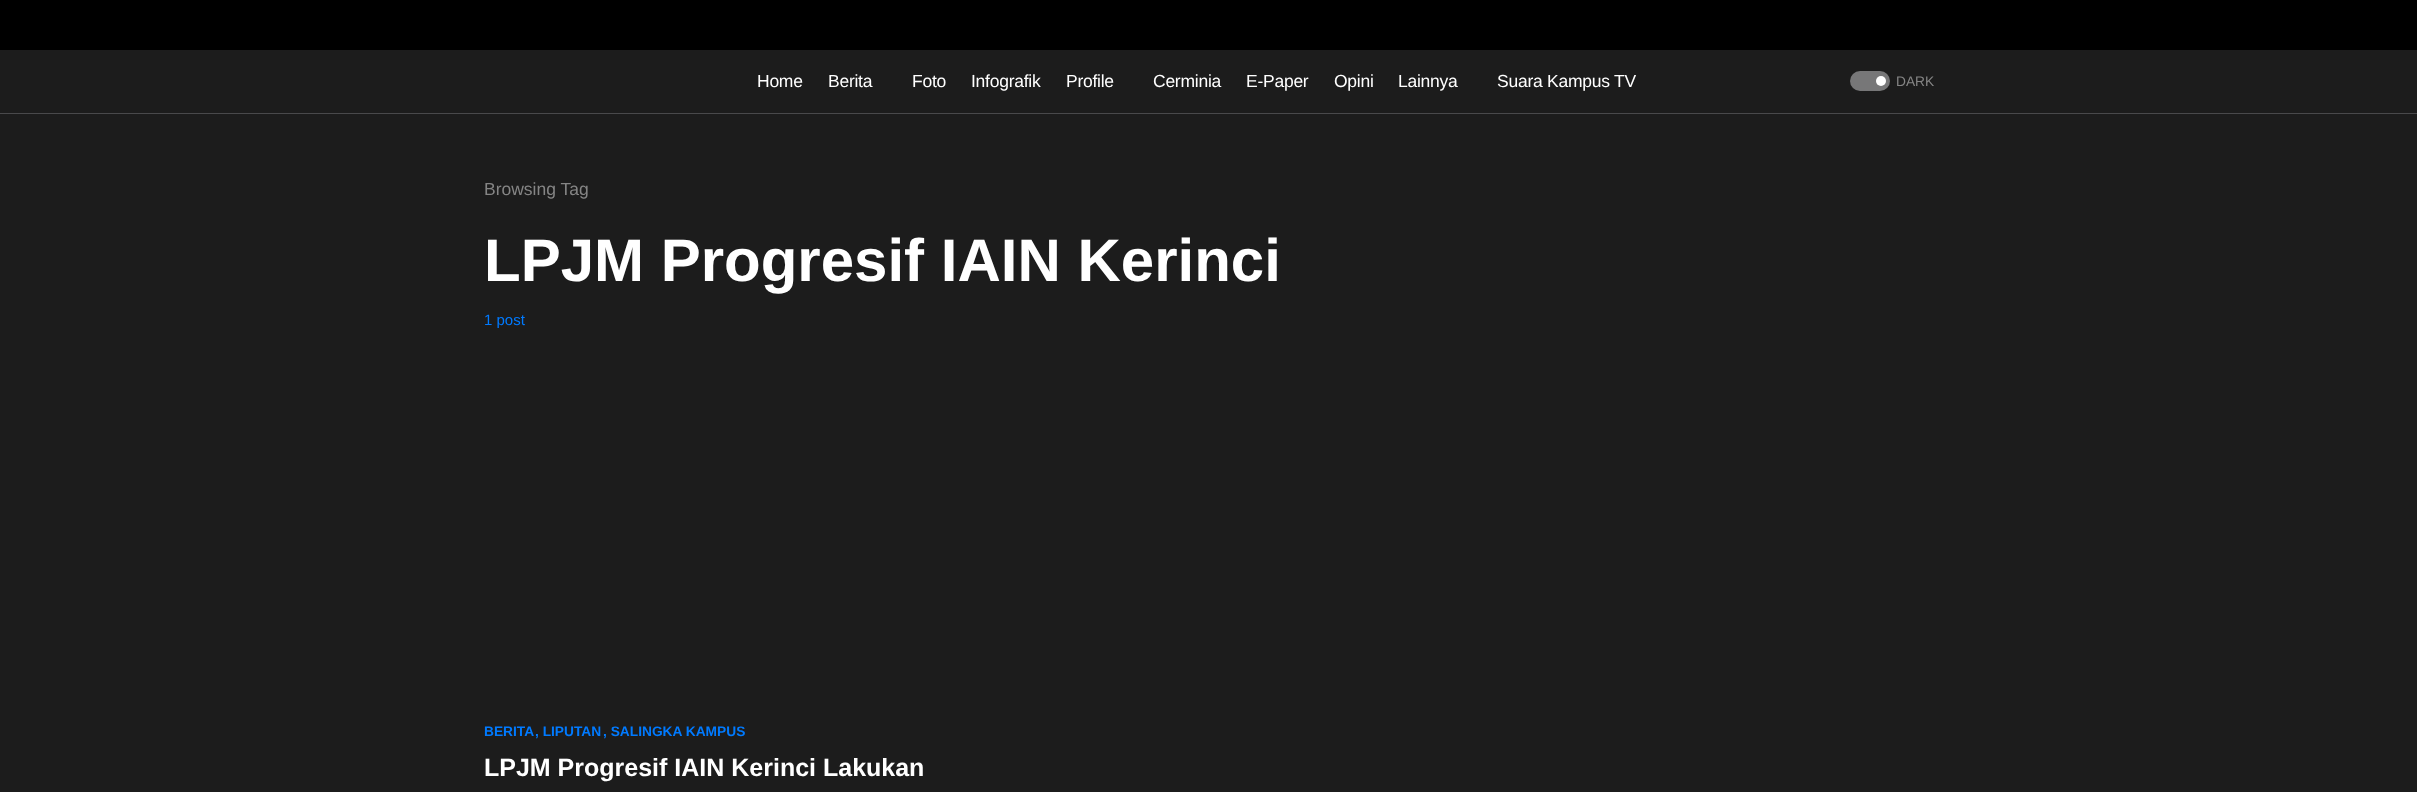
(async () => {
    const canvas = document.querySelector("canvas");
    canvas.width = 2417;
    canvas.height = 792;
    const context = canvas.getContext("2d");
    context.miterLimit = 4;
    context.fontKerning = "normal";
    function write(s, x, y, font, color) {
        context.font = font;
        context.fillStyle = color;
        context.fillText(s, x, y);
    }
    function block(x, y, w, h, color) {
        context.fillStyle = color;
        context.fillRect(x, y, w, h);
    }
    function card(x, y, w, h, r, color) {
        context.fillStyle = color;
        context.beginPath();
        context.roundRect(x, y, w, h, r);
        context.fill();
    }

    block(0, 0, 2417, 792, "rgb(28, 28, 28)");
    block(0, 0, 2417, 50, "rgb(0, 0, 0)");
    block(0, 113, 2417, 1, "rgb(73, 73, 75)");
    context.letterSpacing = "-0.25px";
    write("Home", 757, 87, "17.5px Liberation Sans", "rgb(255, 255, 255)");
    write("Berita", 828, 87, "17.5px Liberation Sans", "rgb(255, 255, 255)");
    write("Foto", 912, 87, "17.5px Liberation Sans", "rgb(255, 255, 255)");
    write("Infografik", 971, 87, "17.5px Liberation Sans", "rgb(255, 255, 255)");
    write("Profile", 1066, 87, "17.5px Liberation Sans", "rgb(255, 255, 255)");
    write("Cerminia", 1153, 87, "17.5px Liberation Sans", "rgb(255, 255, 255)");
    write("E-Paper", 1246, 87, "17.5px Liberation Sans", "rgb(255, 255, 255)");
    write("Opini", 1334, 87, "17.5px Liberation Sans", "rgb(255, 255, 255)");
    write("Lainnya", 1398, 87, "17.5px Liberation Sans", "rgb(255, 255, 255)");
    write("Suara Kampus TV", 1497, 87, "17.5px Liberation Sans", "rgb(255, 255, 255)");
    card(1850, 71, 40, 20, 10, "rgb(119, 119, 120)");
    context.fillStyle = "rgb(255, 255, 255)";
    context.beginPath();
    context.arc(1881, 81, 5, 0, Math.PI * 2);
    context.fill();
    context.letterSpacing = "0px";
    write("DARK", 1896, 86, "13.75px Liberation Sans", "rgb(133, 133, 133)");
    write("Browsing Tag", 484, 195, "17.5px Liberation Sans", "rgb(133, 133, 133)");
    write("LPJM Progresif IAIN Kerinci", 484, 281, "bold 60px Liberation Sans", "rgb(255, 255, 255)");
    write("1 post", 484, 325, "15px Liberation Sans", "rgb(0, 122, 255)");
    write("BERITA", 484, 736, "bold 13.75px Liberation Sans", "rgb(0, 122, 255)");
    write(", LIPUTAN", 535, 736, "bold 13.75px Liberation Sans", "rgb(0, 122, 255)");
    write(", SALINGKA KAMPUS", 603, 736, "bold 13.75px Liberation Sans", "rgb(0, 122, 255)");
    write("LPJM Progresif IAIN Kerinci Lakukan", 484, 776, "bold 25px Liberation Sans", "rgb(255, 255, 255)");
})();
